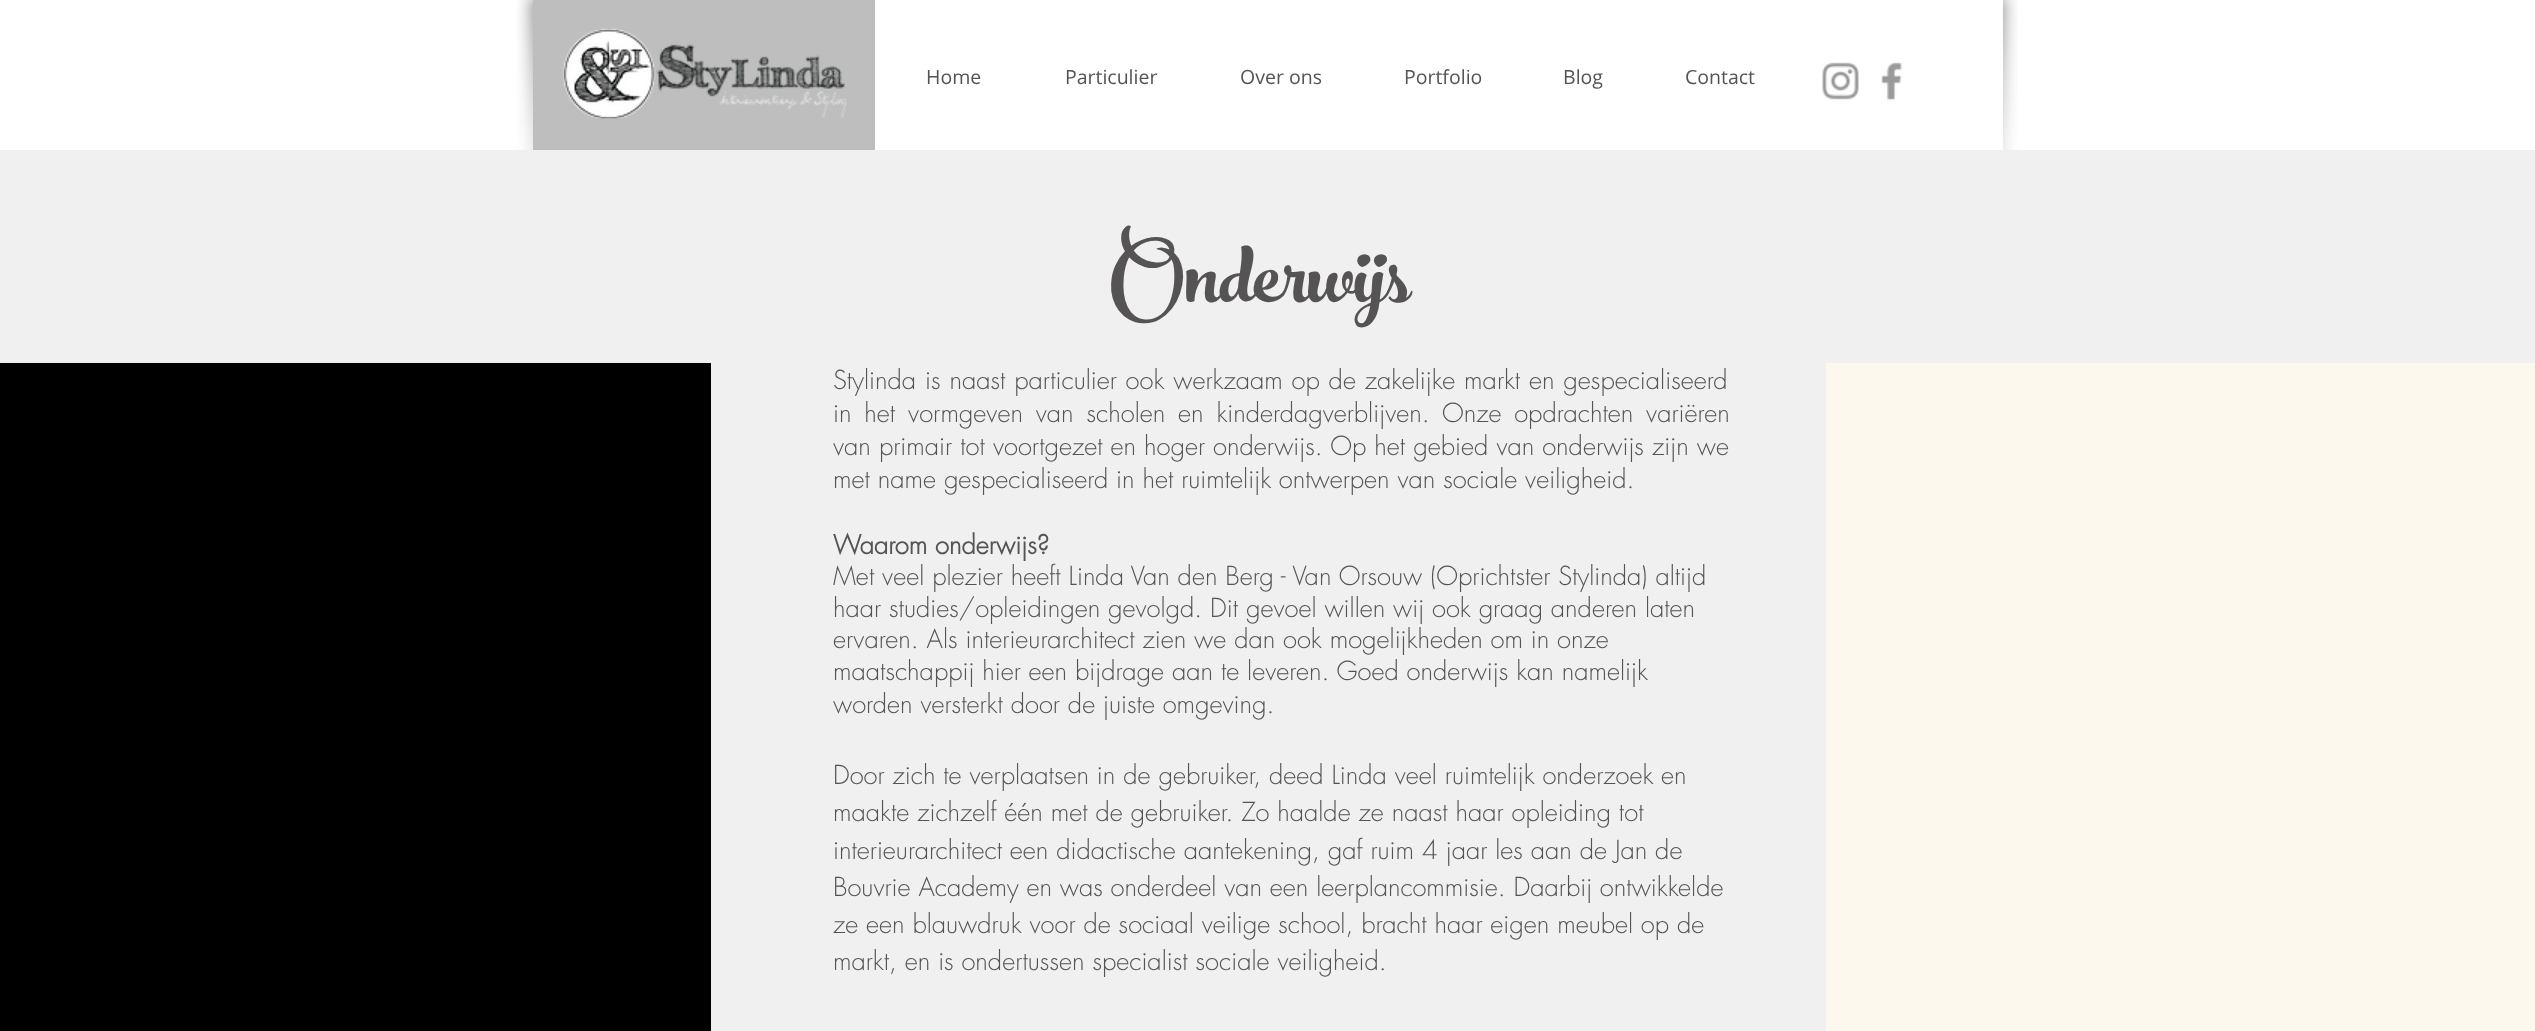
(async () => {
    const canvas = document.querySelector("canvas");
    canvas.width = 2535;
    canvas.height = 1031;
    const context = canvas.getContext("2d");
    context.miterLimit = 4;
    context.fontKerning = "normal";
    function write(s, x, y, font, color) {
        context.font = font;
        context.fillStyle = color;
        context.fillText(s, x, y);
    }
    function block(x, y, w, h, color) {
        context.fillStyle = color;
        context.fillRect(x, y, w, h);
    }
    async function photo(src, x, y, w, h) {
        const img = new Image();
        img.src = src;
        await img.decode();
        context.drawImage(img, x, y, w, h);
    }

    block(0, 0, 2535, 1031, "rgb(255, 255, 255)");
    await photo("media/1.png", 517, 0, 16, 150);
    await photo("media/2.png", 2003, 0, 15, 150);
    block(533, 0, 342, 150, "rgb(190, 190, 190)");
    await photo("media/3.png", 562, 28, 285, 91);
    write("Home", 926, 84, "19.5px Open Sans", "rgb(85, 83, 83)");
    write("Particulier", 1065, 84, "19.5px Open Sans", "rgb(85, 83, 83)");
    write("Over ons", 1240, 84, "19.5px Open Sans", "rgb(85, 83, 83)");
    write("Portfolio", 1404, 84, "19.5px Open Sans", "rgb(85, 83, 83)");
    write("Blog", 1563, 84, "19.5px Open Sans", "rgb(85, 83, 83)");
    write("Contact", 1685, 84, "19.5px Open Sans", "rgb(85, 83, 83)");
    await photo("media/4.png", 1822, 62, 37, 38);
    await photo("media/5.png", 1881, 62, 22, 39);
    block(0, 150, 2535, 213, "rgb(240, 240, 240)");
    write("Onderwijs", 1111, 302, "120px 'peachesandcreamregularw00'", "rgb(85, 83, 83)");
    block(0, 363, 711, 668, "rgb(0, 0, 0)");
    block(711, 363, 1115, 668, "rgb(240, 240, 240)");
    context.wordSpacing = "1px";
    write("Stylinda is naast particulier ook werkzaam op de zakelijke markt en gespecialiseerd", 833, 389, "300 25.5px futura", "rgb(85, 83, 83)");
    context.wordSpacing = "5px";
    write("in het vormgeven van scholen en kinderdagverblijven. Onze opdrachten variëren", 833, 422, "300 25.5px futura", "rgb(85, 83, 83)");
    context.wordSpacing = "0.2px";
    write("van primair tot voortgezet en hoger onderwijs. Op het gebied van onderwijs zijn we", 833, 455, "300 25.5px futura", "rgb(85, 83, 83)");
    context.wordSpacing = "0px";
    write("met name gespecialiseerd in het ruimtelijk ontwerpen van sociale veiligheid.", 833, 488, "300 25.5px futura", "rgb(85, 83, 83)");
    write("Waarom onderwijs?", 833, 554, "bold 25.5px futura", "rgb(85, 83, 83)");
    write("Met veel plezier heeft Linda Van den Berg - Van Orsouw (Oprichtster Stylinda) altijd", 833, 585, "300 25.5px futura", "rgb(85, 83, 83)");
    write("haar studies/opleidingen gevolgd. Dit gevoel willen wij ook graag anderen laten", 833, 617, "300 25.5px futura", "rgb(85, 83, 83)");
    write("ervaren. Als interieurarchitect zien we dan ook mogelijkheden om in onze", 833, 648, "300 25.5px futura", "rgb(85, 83, 83)");
    write("maatschappij hier een bijdrage aan te leveren. Goed onderwijs kan namelijk", 833, 680, "300 25.5px futura", "rgb(85, 83, 83)");
    write("worden versterkt door de juiste omgeving.", 833, 713, "300 25.5px futura", "rgb(85, 83, 83)");
    write("Door zich te verplaatsen in de gebruiker, deed Linda veel ruimtelijk onderzoek en", 833, 784, "300 25.5px futura", "rgb(85, 83, 83)");
    write("maakte zichzelf één met de gebruiker. Zo haalde ze naast haar opleiding tot", 833, 821, "300 25.5px futura", "rgb(85, 83, 83)");
    write("interieurarchitect een didactische aantekening, gaf ruim 4 jaar les aan de Jan de", 833, 859, "300 25.5px futura", "rgb(85, 83, 83)");
    write("Bouvrie Academy en was onderdeel van een leerplancommisie. Daarbij ontwikkelde", 833, 896, "300 25.5px futura", "rgb(85, 83, 83)");
    write("ze een blauwdruk voor de sociaal veilige school, bracht haar eigen meubel op de", 833, 933, "300 25.5px futura", "rgb(85, 83, 83)");
    write("markt, en is ondertussen specialist sociale veiligheid.", 833, 970, "300 25.5px futura", "rgb(85, 83, 83)");
    block(1826, 363, 709, 668, "rgb(252, 248, 237)");
})();
